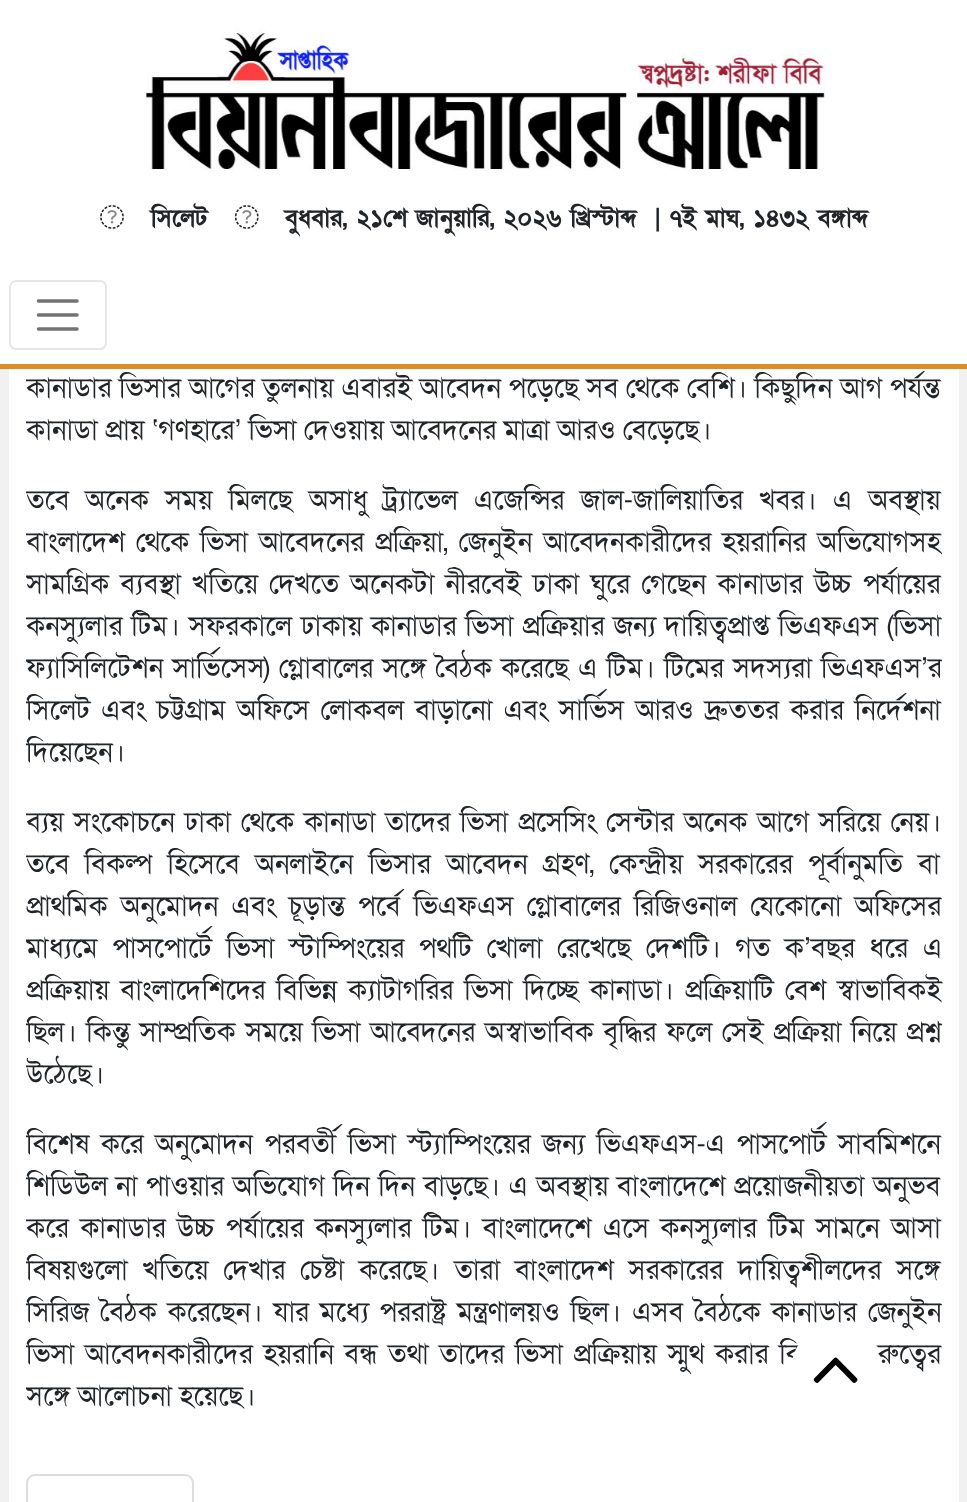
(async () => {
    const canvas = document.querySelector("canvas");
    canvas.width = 967;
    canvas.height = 1502;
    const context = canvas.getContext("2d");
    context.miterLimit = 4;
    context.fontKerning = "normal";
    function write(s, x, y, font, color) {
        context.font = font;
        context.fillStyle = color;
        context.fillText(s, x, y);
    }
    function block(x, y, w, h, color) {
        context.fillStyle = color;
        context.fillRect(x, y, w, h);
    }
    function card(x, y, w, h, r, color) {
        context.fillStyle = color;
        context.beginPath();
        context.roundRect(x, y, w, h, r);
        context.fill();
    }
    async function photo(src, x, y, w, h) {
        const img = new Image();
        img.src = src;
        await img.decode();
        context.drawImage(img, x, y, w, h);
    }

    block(0, 0, 967, 1502, "rgb(241, 241, 241)");
    block(0, 0, 967, 364, "rgb(255, 255, 255)");
    await photo("media/1.png", 145, 29, 681, 142);
    await photo("media/2.png", 100, 205, 24, 24);
    write("সিলেট", 151, 226, "bold 24.5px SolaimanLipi", "rgb(33, 37, 41)");
    await photo("media/3.png", 234, 205, 25, 24);
    write("বুধবার, ২১শে জানুয়ারি, ২০২৬ খ্রিস্টাব্দ  | ৭ই মাঘ, ১৪৩২ বঙ্গাব্দ", 285, 226, "bold 24.5px SolaimanLipi", "rgb(33, 37, 41)");
    block(0, 364, 967, 5, "rgb(225, 139, 32)");
    context.beginPath();
    context.roundRect(10, 281, 96, 68, 6);
    context.strokeStyle = "rgb(230, 230, 230)";
    context.lineWidth = 2;
    context.stroke();
    context.beginPath();
    context.moveTo(38.5, 301);
    context.lineTo(77, 301);
    context.moveTo(38.5, 315);
    context.lineTo(77, 315);
    context.moveTo(38.5, 329);
    context.lineTo(77, 329);
    context.strokeStyle = "rgb(115, 115, 115)";
    context.lineWidth = 3.5;
    context.lineCap = "round";
    context.stroke();
    block(9, 369, 950, 1133, "rgb(255, 255, 255)");
    context.save();
    context.beginPath();
    context.rect(26, 124, 916, 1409);
    context.clip();
    context.wordSpacing = "0.25px";
    write("কানাডার ভিসার আগের তুলনায় এবারই আবেদন পড়েছে সব থেকে বেশি। কিছুদিন আগ পর্যন্ত", 26, 397, "28px SolaimanLipi", "rgb(33, 37, 41)");
    context.wordSpacing = "0px";
    write("কানাডা প্রায় ‘গণহারে’ ভিসা দেওয়ায় আবেদনের মাত্রা আরও বেড়েছে।", 26, 439, "28px SolaimanLipi", "rgb(33, 37, 41)");
    context.wordSpacing = "8.75px";
    write("তবে অনেক সময় মিলছে অসাধু ট্র্যাভেল এজেন্সির জাল-জালিয়াতির খবর। এ অবস্থায়", 26, 509, "28px SolaimanLipi", "rgb(33, 37, 41)");
    context.wordSpacing = "3.5px";
    write("বাংলাদেশ থেকে ভিসা আবেদনের প্রক্রিয়া, জেনুইন আবেদনকারীদের হয়রানির অভিযোগসহ", 26, 551, "28px SolaimanLipi", "rgb(33, 37, 41)");
    context.wordSpacing = "3.9px";
    write("সামগ্রিক ব্যবস্থা খতিয়ে দেখতে অনেকটা নীরবেই ঢাকা ঘুরে গেছেন কানাডার উচ্চ পর্যায়ের", 26, 593, "28px SolaimanLipi", "rgb(33, 37, 41)");
    context.wordSpacing = "1.5px";
    write("কনস্যুলার টিম। সফরকালে ঢাকায় কানাডার ভিসা প্রক্রিয়ার জন্য দায়িত্বপ্রাপ্ত ভিএফএস (ভিসা", 26, 635, "28px SolaimanLipi", "rgb(33, 37, 41)");
    context.wordSpacing = "1.75px";
    write("ফ্যাসিলিটেশন সার্ভিসেস) গ্লোবালের সঙ্গে বৈঠক করেছে এ টিম। টিমের সদস্যরা ভিএফএস’র", 26, 677, "28px SolaimanLipi", "rgb(33, 37, 41)");
    context.wordSpacing = "3.75px";
    write("সিলেট এবং চট্টগ্রাম অফিসে লোকবল বাড়ানো এবং সার্ভিস আরও দ্রুততর করার নির্দেশনা", 26, 719, "28px SolaimanLipi", "rgb(33, 37, 41)");
    context.wordSpacing = "0px";
    write("দিয়েছেন।", 26, 761, "28px SolaimanLipi", "rgb(33, 37, 41)");
    context.wordSpacing = "2.4px";
    write("ব্যয় সংকোচনে ঢাকা থেকে কানাডা তাদের ভিসা প্রসেসিং সেন্টার অনেক আগে সরিয়ে নেয়।", 26, 831, "28px SolaimanLipi", "rgb(33, 37, 41)");
    context.wordSpacing = "8px";
    write("তবে বিকল্প হিসেবে অনলাইনে ভিসার আবেদন গ্রহণ, কেন্দ্রীয় সরকারের পূর্বানুমতি বা", 26, 873, "28px SolaimanLipi", "rgb(33, 37, 41)");
    context.wordSpacing = "5.75px";
    write("প্রাথমিক অনুমোদন এবং চূড়ান্ত পর্বে ভিএফএস গ্লোবালের রিজিওনাল যেকোনো অফিসের", 26, 915, "28px SolaimanLipi", "rgb(33, 37, 41)");
    context.wordSpacing = "7.25px";
    write("মাধ্যমে পাসপোর্টে ভিসা স্টাম্পিংয়ের পথটি খোলা রেখেছে দেশটি। গত ক’বছর ধরে এ", 26, 957, "28px SolaimanLipi", "rgb(33, 37, 41)");
    context.restore();
    context.wordSpacing = "3.75px";
    write("প্রক্রিয়ায় বাংলাদেশিদের বিভিন্ন ক্যাটাগরির ভিসা দিচ্ছে কানাডা। প্রক্রিয়াটি বেশ স্বাভাবিকই", 26, 999, "28px SolaimanLipi", "rgb(33, 37, 41)");
    context.save();
    context.beginPath();
    context.rect(26, 124, 916, 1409);
    context.clip();
    context.wordSpacing = "2.25px";
    write("ছিল। কিন্তু সাম্প্রতিক সময়ে ভিসা আবেদনের অস্বাভাবিক বৃদ্ধির ফলে সেই প্রক্রিয়া নিয়ে প্রশ্ন", 26, 1041, "28px SolaimanLipi", "rgb(33, 37, 41)");
    context.wordSpacing = "0px";
    write("উঠেছে।", 26, 1083, "28px SolaimanLipi", "rgb(33, 37, 41)");
    context.wordSpacing = "4.25px";
    write("বিশেষ করে অনুমোদন পরবর্তী ভিসা স্ট্যাম্পিংয়ের জন্য ভিএফএস-এ পাসপোর্ট সাবমিশনে", 26, 1153, "28px SolaimanLipi", "rgb(33, 37, 41)");
    context.wordSpacing = "1px";
    write("শিডিউল না পাওয়ার অভিযোগ দিন দিন বাড়ছে। এ অবস্থায় বাংলাদেশে প্রয়োজনীয়তা অনুভব", 26, 1195, "28px SolaimanLipi", "rgb(33, 37, 41)");
    context.wordSpacing = "4px";
    write("করে কানাডার উচ্চ পর্যায়ের কনস্যুলার টিম। বাংলাদেশে এসে কনস্যুলার টিম সামনে আসা", 26, 1237, "28px SolaimanLipi", "rgb(33, 37, 41)");
    context.wordSpacing = "7.5px";
    write("বিষয়গুলো খতিয়ে দেখার চেষ্টা করেছে। তারা বাংলাদেশ সরকারের দায়িত্বশীলদের সঙ্গে", 26, 1279, "28px SolaimanLipi", "rgb(33, 37, 41)");
    context.wordSpacing = "3.5px";
    write("সিরিজ বৈঠক করেছেন। যার মধ্যে পররাষ্ট্র মন্ত্রণালয়ও ছিল। এসব বৈঠকে কানাডার জেনুইন", 26, 1321, "28px SolaimanLipi", "rgb(33, 37, 41)");
    context.wordSpacing = "3.25px";
    write("ভিসা আবেদনকারীদের হয়রানি বন্ধ তথা তাদের ভিসা প্রক্রিয়ায় স্মুথ করার বি", 26, 1363, "28px SolaimanLipi", "rgb(33, 37, 41)");
    context.restore();
    context.wordSpacing = "3.25px";
    write("রুত্বের", 878, 1363, "28px SolaimanLipi", "rgb(33, 37, 41)");
    context.save();
    context.beginPath();
    context.rect(26, 124, 916, 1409);
    context.clip();
    context.wordSpacing = "0px";
    write("সঙ্গে আলোচনা হয়েছে।", 26, 1405, "28px SolaimanLipi", "rgb(33, 37, 41)");
    context.restore();
    context.beginPath();
    context.roundRect(27, 1475, 166, 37, 8);
    context.strokeStyle = "rgb(221, 221, 221)";
    context.lineWidth = 2;
    context.stroke();
    card(791, 1325, 89, 91, 44.5, "rgb(255, 255, 255)");
    await photo("media/4.png", 813, 1357, 45, 26);
})();
